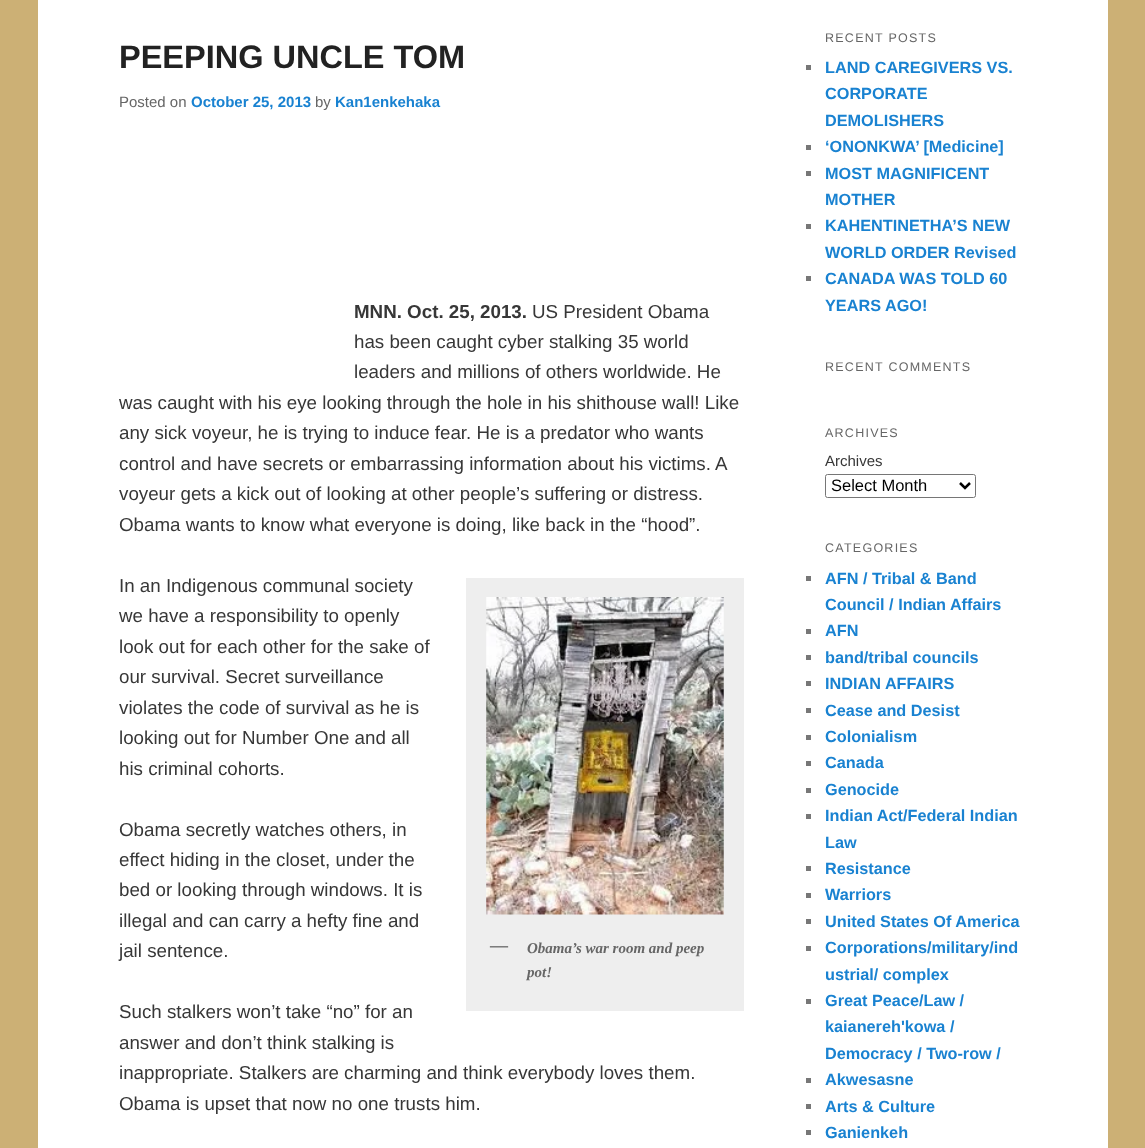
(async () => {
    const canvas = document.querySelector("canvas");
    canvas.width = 1145;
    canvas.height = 1148;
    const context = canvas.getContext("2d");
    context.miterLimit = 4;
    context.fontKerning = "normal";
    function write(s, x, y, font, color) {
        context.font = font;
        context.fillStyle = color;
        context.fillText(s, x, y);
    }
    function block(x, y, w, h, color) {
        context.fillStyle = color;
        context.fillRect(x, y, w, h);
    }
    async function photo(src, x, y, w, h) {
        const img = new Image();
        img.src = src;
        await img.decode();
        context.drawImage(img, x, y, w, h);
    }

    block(0, 0, 1145, 1148, "rgb(204, 176, 117)");
    block(38, 0, 1070, 1148, "rgb(255, 255, 255)");
    write("PEEPING UNCLE TOM", 119, 68, "bold 32.5px Liberation Sans", "rgb(34, 34, 34)");
    write("Posted on", 119, 107, "15px Liberation Sans", "rgb(102, 102, 102)");
    write("October 25, 2013", 191, 107, "bold 15px Liberation Sans", "rgb(25, 130, 209)");
    write("by", 315, 107, "15px Liberation Sans", "rgb(102, 102, 102)");
    write("Kan1enkehaka", 335, 107, "bold 15px Liberation Sans", "rgb(25, 130, 209)");
    write("MNN. Oct. 25, 2013.", 354, 318, "bold 18.75px Liberation Sans", "rgb(55, 55, 55)");
    write("US President Obama", 532, 318, "18.75px Liberation Sans", "rgb(55, 55, 55)");
    write("has been caught cyber stalking 35 world", 354, 348, "18.75px Liberation Sans", "rgb(55, 55, 55)");
    write("leaders and millions of others worldwide. He", 354, 378, "18.75px Liberation Sans", "rgb(55, 55, 55)");
    write("was caught with his eye looking through the hole in his shithouse wall! Like", 119, 409, "18.75px Liberation Sans", "rgb(55, 55, 55)");
    write("any sick voyeur, he is trying to induce fear. He is a predator who wants", 119, 439, "18.75px Liberation Sans", "rgb(55, 55, 55)");
    write("control and have secrets or embarrassing information about his victims. A", 119, 470, "18.75px Liberation Sans", "rgb(55, 55, 55)");
    write("voyeur gets a kick out of looking at other people’s suffering or distress.", 119, 500, "18.75px Liberation Sans", "rgb(55, 55, 55)");
    write("Obama wants to know what everyone is doing, like back in the “hood”.", 119, 531, "18.75px Liberation Sans", "rgb(55, 55, 55)");
    write("In an Indigenous communal society", 119, 592, "18.75px Liberation Sans", "rgb(55, 55, 55)");
    write("we have a responsibility to openly", 119, 622, "18.75px Liberation Sans", "rgb(55, 55, 55)");
    write("look out for each other for the sake of", 119, 653, "18.75px Liberation Sans", "rgb(55, 55, 55)");
    write("our survival. Secret surveillance", 119, 683, "18.75px Liberation Sans", "rgb(55, 55, 55)");
    write("violates the code of survival as he is", 119, 714, "18.75px Liberation Sans", "rgb(55, 55, 55)");
    write("looking out for Number One and all", 119, 744, "18.75px Liberation Sans", "rgb(55, 55, 55)");
    write("his criminal cohorts.", 119, 775, "18.75px Liberation Sans", "rgb(55, 55, 55)");
    write("Obama secretly watches others, in", 119, 836, "18.75px Liberation Sans", "rgb(55, 55, 55)");
    write("effect hiding in the closet, under the", 119, 866, "18.75px Liberation Sans", "rgb(55, 55, 55)");
    write("bed or looking through windows. It is", 119, 896, "18.75px Liberation Sans", "rgb(55, 55, 55)");
    write("illegal and can carry a hefty fine and", 119, 927, "18.75px Liberation Sans", "rgb(55, 55, 55)");
    write("jail sentence.", 119, 957, "18.75px Liberation Sans", "rgb(55, 55, 55)");
    block(466, 578, 278, 433, "rgb(238, 238, 238)");
    await photo("media/1.png", 486, 597, 238, 318);
    write("—", 490, 951, "bold 18px Liberation Serif", "rgb(102, 102, 102)");
    write("Obama’s war room and peep", 527, 953, "italic bold 15px Liberation Serif", "rgb(102, 102, 102)");
    write("pot!", 527, 977, "italic bold 15px Liberation Serif", "rgb(102, 102, 102)");
    write("Such stalkers won’t take “no” for an", 119, 1018, "18.75px Liberation Sans", "rgb(55, 55, 55)");
    write("answer and don’t think stalking is", 119, 1049, "18.75px Liberation Sans", "rgb(55, 55, 55)");
    write("inappropriate. Stalkers are charming and think everybody loves them.", 119, 1079, "18.75px Liberation Sans", "rgb(55, 55, 55)");
    write("Obama is upset that now no one trusts him.", 119, 1110, "18.75px Liberation Sans", "rgb(55, 55, 55)");
    context.letterSpacing = "1.25px";
    write("RECENT POSTS", 825, 42, "12.5px Liberation Sans", "rgb(102, 102, 102)");
    block(806, 65, 5, 5, "rgb(119, 119, 119)");
    context.letterSpacing = "0px";
    write("LAND CAREGIVERS VS.", 825, 73, "bold 16.25px Liberation Sans", "rgb(25, 130, 209)");
    write("CORPORATE", 825, 99, "bold 16.25px Liberation Sans", "rgb(25, 130, 209)");
    write("DEMOLISHERS", 825, 126, "bold 16.25px Liberation Sans", "rgb(25, 130, 209)");
    block(806, 145, 5, 5, "rgb(119, 119, 119)");
    write("‘ONONKWA’ [Medicine]", 825, 152, "bold 16.25px Liberation Sans", "rgb(25, 130, 209)");
    block(806, 171, 5, 5, "rgb(119, 119, 119)");
    write("MOST MAGNIFICENT", 825, 179, "bold 16.25px Liberation Sans", "rgb(25, 130, 209)");
    write("MOTHER", 825, 205, "bold 16.25px Liberation Sans", "rgb(25, 130, 209)");
    block(806, 224, 5, 5, "rgb(119, 119, 119)");
    write("KAHENTINETHA’S NEW", 825, 231, "bold 16.25px Liberation Sans", "rgb(25, 130, 209)");
    write("WORLD ORDER Revised", 825, 258, "bold 16.25px Liberation Sans", "rgb(25, 130, 209)");
    block(806, 276, 5, 5, "rgb(119, 119, 119)");
    write("CANADA WAS TOLD 60", 825, 284, "bold 16.25px Liberation Sans", "rgb(25, 130, 209)");
    write("YEARS AGO!", 825, 311, "bold 16.25px Liberation Sans", "rgb(25, 130, 209)");
    context.letterSpacing = "1.25px";
    write("RECENT COMMENTS", 825, 371, "12.5px Liberation Sans", "rgb(102, 102, 102)");
    write("ARCHIVES", 825, 437, "12.5px Liberation Sans", "rgb(102, 102, 102)");
    context.letterSpacing = "0px";
    write("Archives", 825, 466, "15px Liberation Sans", "rgb(55, 55, 55)");
    context.beginPath();
    context.roundRect(825.5, 474.5, 150, 23, 2);
    context.strokeStyle = "rgb(118, 118, 118)";
    context.stroke();
    context.beginPath();
    context.moveTo(960, 483);
    context.lineTo(965, 488);
    context.lineTo(970, 483);
    context.strokeStyle = "rgb(0, 0, 0)";
    context.lineWidth = 2.5;
    context.stroke();
    write("Select Month", 831, 491, "16.5px Liberation Sans", "rgb(0, 0, 0)");
    context.letterSpacing = "1.25px";
    write("CATEGORIES", 825, 552, "12.5px Liberation Sans", "rgb(102, 102, 102)");
    block(806, 576, 5, 5, "rgb(119, 119, 119)");
    context.letterSpacing = "0px";
    write("AFN / Tribal & Band", 825, 584, "bold 16.25px Liberation Sans", "rgb(25, 130, 209)");
    write("Council / Indian Affairs", 825, 610, "bold 16.25px Liberation Sans", "rgb(25, 130, 209)");
    block(806, 629, 5, 5, "rgb(119, 119, 119)");
    write("AFN", 825, 636, "bold 16.25px Liberation Sans", "rgb(25, 130, 209)");
    block(806, 655, 5, 5, "rgb(119, 119, 119)");
    write("band/tribal councils", 825, 663, "bold 16.25px Liberation Sans", "rgb(25, 130, 209)");
    block(806, 681, 5, 5, "rgb(119, 119, 119)");
    write("INDIAN AFFAIRS", 825, 689, "bold 16.25px Liberation Sans", "rgb(25, 130, 209)");
    block(806, 708, 5, 5, "rgb(119, 119, 119)");
    write("Cease and Desist", 825, 716, "bold 16.25px Liberation Sans", "rgb(25, 130, 209)");
    block(806, 735, 5, 5, "rgb(119, 119, 119)");
    write("Colonialism", 825, 742, "bold 16.25px Liberation Sans", "rgb(25, 130, 209)");
    block(806, 761, 5, 5, "rgb(119, 119, 119)");
    write("Canada", 825, 768, "bold 16.25px Liberation Sans", "rgb(25, 130, 209)");
    block(806, 788, 5, 5, "rgb(119, 119, 119)");
    write("Genocide", 825, 795, "bold 16.25px Liberation Sans", "rgb(25, 130, 209)");
    block(806, 814, 5, 5, "rgb(119, 119, 119)");
    write("Indian Act/Federal Indian", 825, 821, "bold 16.25px Liberation Sans", "rgb(25, 130, 209)");
    write("Law", 825, 848, "bold 16.25px Liberation Sans", "rgb(25, 130, 209)");
    block(806, 866, 5, 5, "rgb(119, 119, 119)");
    write("Resistance", 825, 874, "bold 16.25px Liberation Sans", "rgb(25, 130, 209)");
    block(806, 893, 5, 5, "rgb(119, 119, 119)");
    write("Warriors", 825, 900, "bold 16.25px Liberation Sans", "rgb(25, 130, 209)");
    block(806, 919, 5, 5, "rgb(119, 119, 119)");
    write("United States Of America", 825, 927, "bold 16.25px Liberation Sans", "rgb(25, 130, 209)");
    block(806, 946, 5, 5, "rgb(119, 119, 119)");
    write("Corporations/military/ind", 825, 953, "bold 16.25px Liberation Sans", "rgb(25, 130, 209)");
    write("ustrial/ complex", 825, 980, "bold 16.25px Liberation Sans", "rgb(25, 130, 209)");
    block(806, 999, 5, 5, "rgb(119, 119, 119)");
    write("Great Peace/Law /", 825, 1006, "bold 16.25px Liberation Sans", "rgb(25, 130, 209)");
    write("kaianereh'kowa /", 825, 1032, "bold 16.25px Liberation Sans", "rgb(25, 130, 209)");
    write("Democracy / Two-row /", 825, 1059, "bold 16.25px Liberation Sans", "rgb(25, 130, 209)");
    block(806, 1078, 5, 5, "rgb(119, 119, 119)");
    write("Akwesasne", 825, 1085, "bold 16.25px Liberation Sans", "rgb(25, 130, 209)");
    block(806, 1104, 5, 5, "rgb(119, 119, 119)");
    write("Arts & Culture", 825, 1112, "bold 16.25px Liberation Sans", "rgb(25, 130, 209)");
    block(806, 1130, 5, 5, "rgb(119, 119, 119)");
    write("Ganienkeh", 825, 1138, "bold 16.25px Liberation Sans", "rgb(25, 130, 209)");
})();
